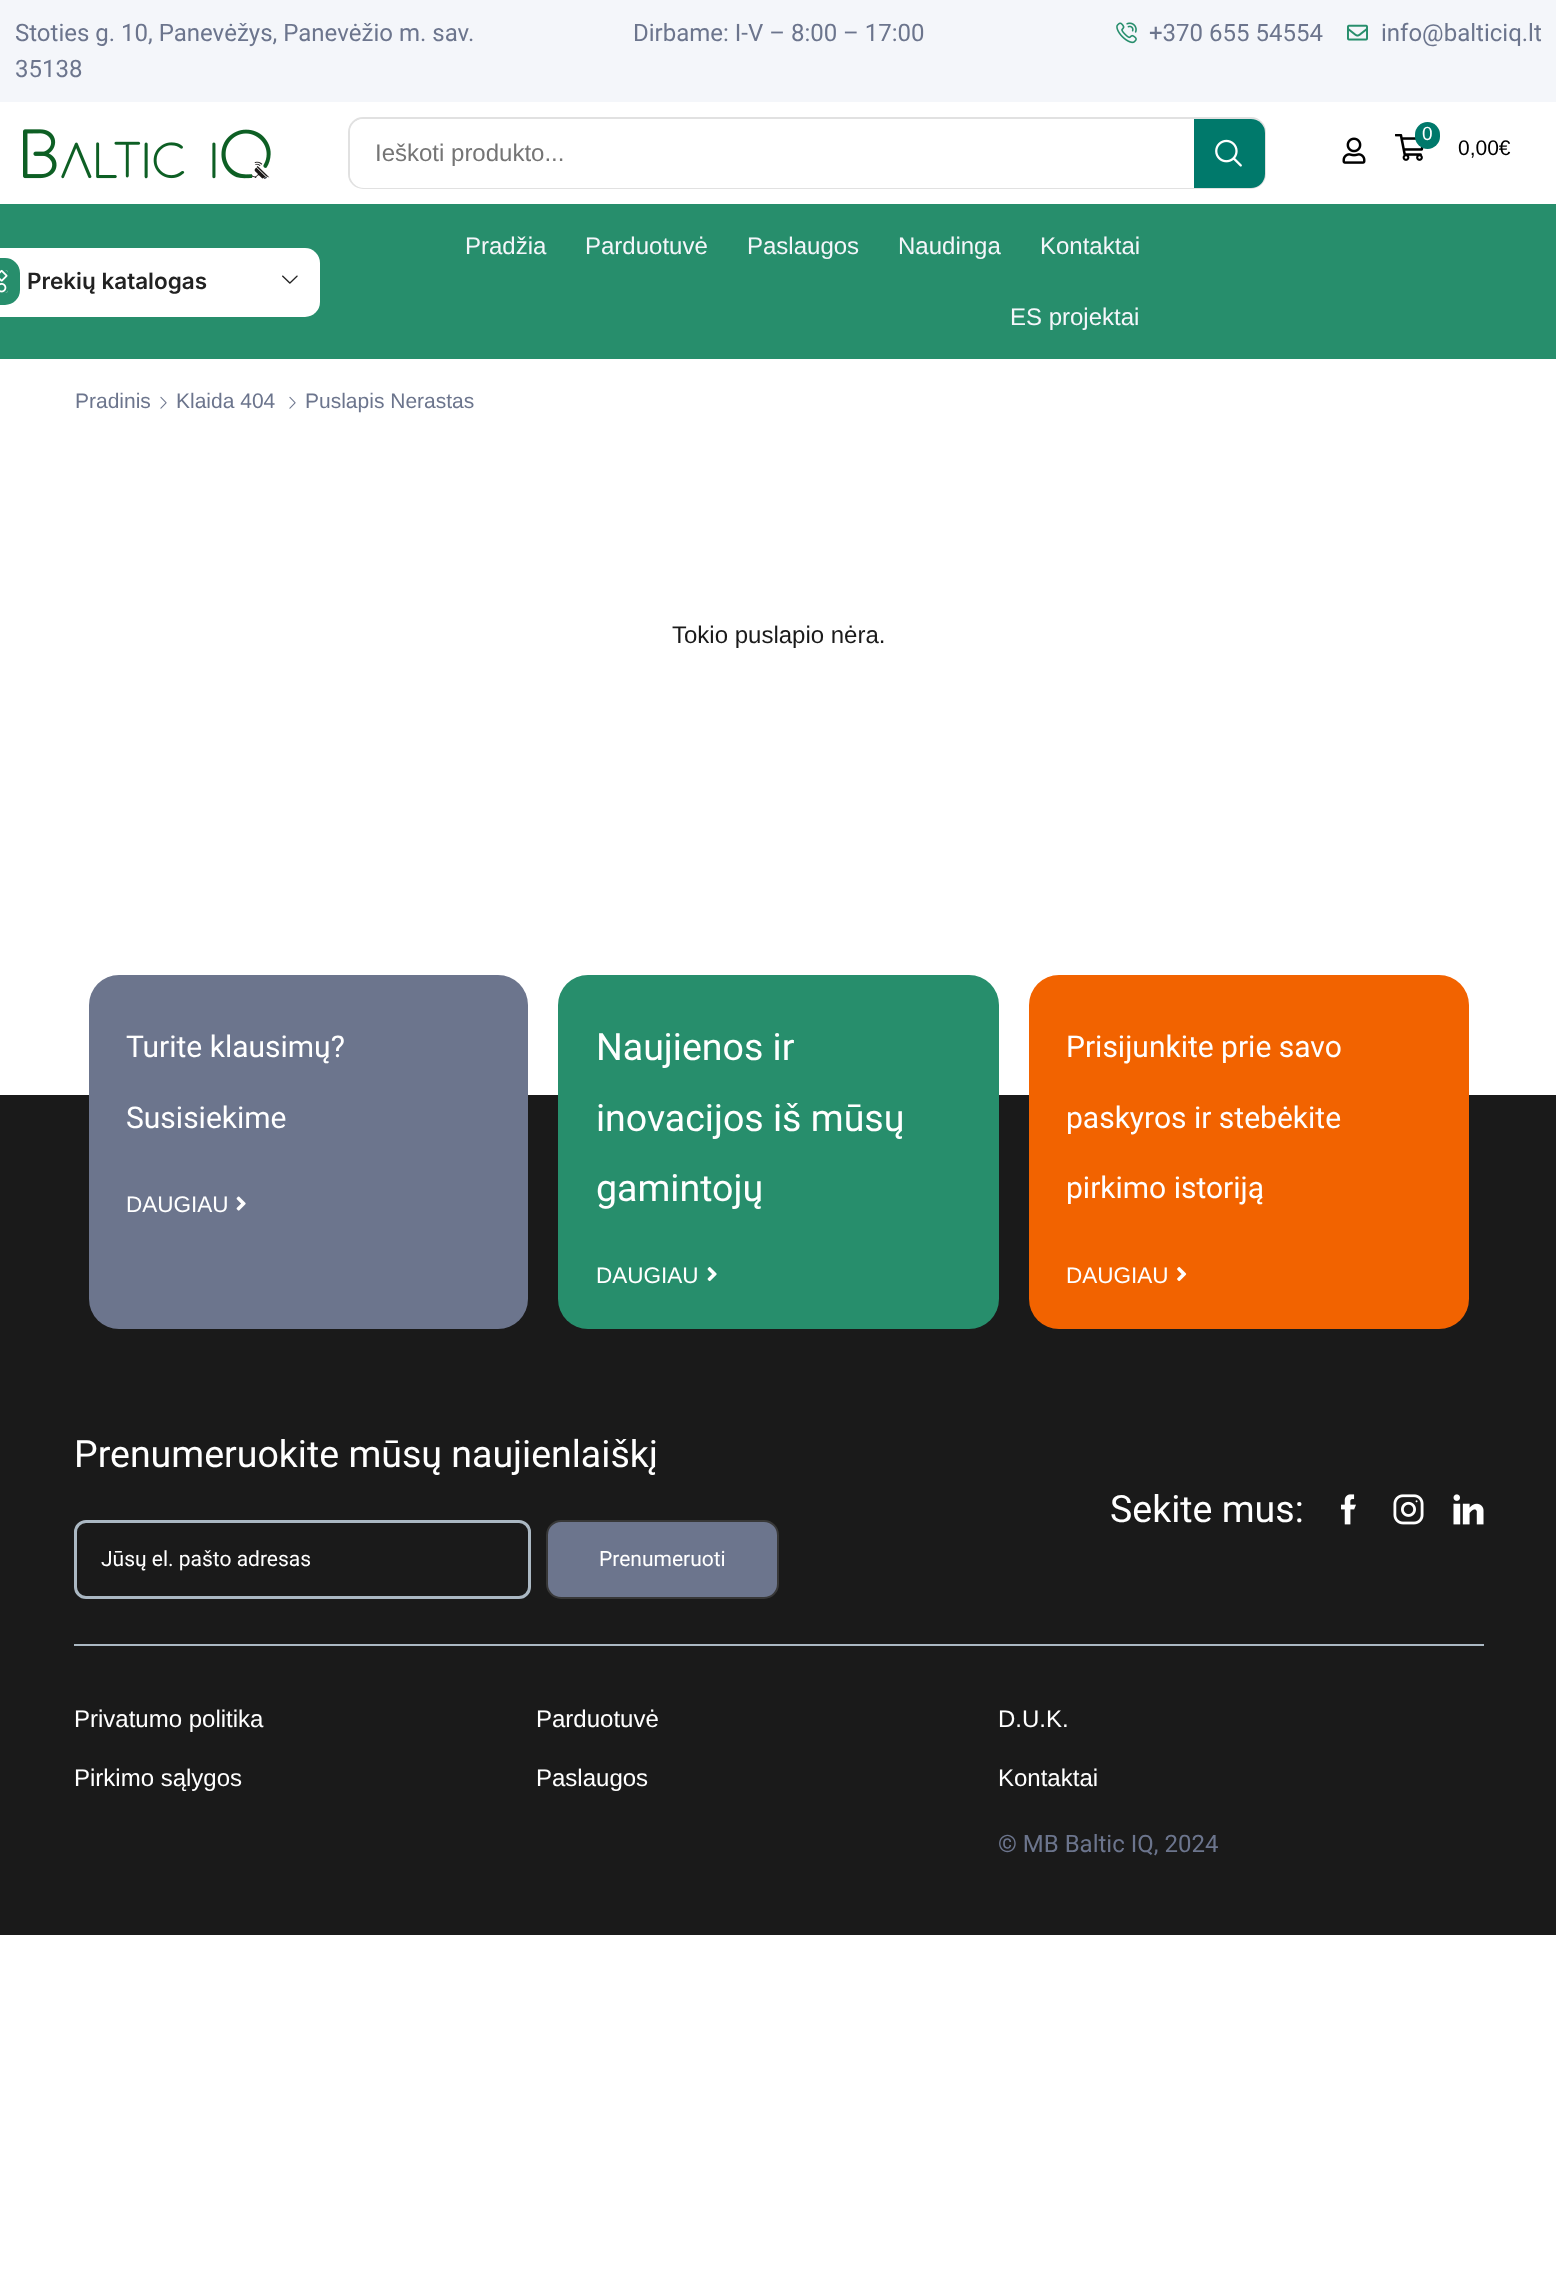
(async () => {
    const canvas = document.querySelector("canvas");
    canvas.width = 1556;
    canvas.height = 2269;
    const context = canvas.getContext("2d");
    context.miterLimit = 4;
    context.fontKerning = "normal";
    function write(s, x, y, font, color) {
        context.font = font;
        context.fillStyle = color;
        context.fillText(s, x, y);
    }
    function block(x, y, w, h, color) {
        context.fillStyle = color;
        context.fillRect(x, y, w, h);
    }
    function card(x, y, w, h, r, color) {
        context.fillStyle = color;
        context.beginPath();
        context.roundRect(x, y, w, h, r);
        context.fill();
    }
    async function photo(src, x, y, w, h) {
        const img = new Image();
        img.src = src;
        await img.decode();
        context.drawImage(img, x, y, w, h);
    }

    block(0, 0, 1556, 2269, "rgb(255, 255, 255)");
    block(0, 0, 1556, 102, "rgb(244, 246, 250)");
    write("Stoties g. 10, Panevėžys, Panevėžio m. sav.", 15, 41, "24px Roboto", "rgb(108, 117, 141)");
    write("35138", 15, 77, "24px Roboto", "rgb(108, 117, 141)");
    write("Dirbame: I-V – 8:00 – 17:00", 633, 41, "24px Roboto", "rgb(108, 117, 141)");
    await photo("media/1.png", 1116, 22, 21, 22);
    write("+370 655 54554", 1149, 41, "24px Roboto", "rgb(108, 117, 141)");
    await photo("media/2.png", 1347, 24, 21, 17);
    write("info@balticiq.lt", 1381, 41, "24px Roboto", "rgb(108, 117, 141)");
    await photo("media/3.png", 23, 129, 248, 50);
    context.beginPath();
    context.roundRect(349, 118, 916, 70, 14);
    context.strokeStyle = "rgb(225, 225, 225)";
    context.lineWidth = 2;
    context.stroke();
    context.fillStyle = "rgb(255, 255, 255)";
    context.beginPath();
    context.roundRect(350, 119, 844, 69, [14, 0, 0, 14]);
    context.fill();
    write("Ieškoti produkto...", 375, 161, "24px Liberation Sans", "rgb(117, 117, 117)");
    context.fillStyle = "rgb(0, 121, 107)";
    context.beginPath();
    context.roundRect(1194, 119, 71, 69, [0, 14, 14, 0]);
    context.fill();
    await photo("media/4.png", 1215, 139, 27, 28);
    await photo("media/5.png", 1342, 137, 24, 27);
    await photo("media/6.png", 1395, 134, 29, 27);
    card(1415, 122, 25, 27, 12.5, "rgb(0, 121, 107)");
    write("0", 1422, 140, "19px Liberation Sans", "rgb(255, 255, 255)");
    write("0,00€", 1458, 155, "21px Liberation Sans", "rgb(0, 0, 0)");
    block(0, 204, 1556, 155, "rgb(39, 142, 108)");
    context.fillStyle = "rgb(255, 255, 255)";
    context.beginPath();
    context.roundRect(0, 248, 320, 69, [0, 15, 15, 0]);
    context.fill();
    context.beginPath();
    context.roundRect(-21, 264, 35, 35, 9);
    context.strokeStyle = "rgb(39, 142, 108)";
    context.lineWidth = 12;
    context.stroke();
    context.fillStyle = "rgb(39, 142, 108)";
    context.beginPath();
    context.roundRect(0, 270, 8, 23, [0, 3, 3, 0]);
    context.fill();
    await photo("media/7.png", 0, 269, 8, 24);
    write("Prekių katalogas", 27, 289, "600 22.5px Inter", "rgb(34, 34, 34)");
    await photo("media/8.png", 282, 275, 16, 9);
    write("Pradžia", 465, 254, "24px Liberation Sans", "rgb(244, 246, 250)");
    write("Parduotuvė", 585, 254, "24px Liberation Sans", "rgb(244, 246, 250)");
    write("Paslaugos", 747, 254, "24px Liberation Sans", "rgb(244, 246, 250)");
    write("Naudinga", 898, 254, "24px Liberation Sans", "rgb(244, 246, 250)");
    write("Kontaktai", 1040, 254, "24px Liberation Sans", "rgb(244, 246, 250)");
    write("ES projektai", 1010, 325, "24px Liberation Sans", "rgb(244, 246, 250)");
    write("Pradinis", 75, 408, "21px Liberation Sans", "rgb(108, 117, 141)");
    await photo("media/9.png", 160, 396, 7, 13);
    write("Klaida 404", 176, 408, "21px Liberation Sans", "rgb(108, 117, 141)");
    await photo("media/9.png", 289, 396, 7, 13);
    write("Puslapis Nerastas", 305, 408, "21px Liberation Sans", "rgb(108, 117, 141)");
    write("Tokio puslapio nėra.", 672, 643, "24px Liberation Sans", "rgb(26, 26, 26)");
    block(0, 1095, 1556, 840, "rgb(26, 26, 26)");
    card(89, 975, 439, 354, 30, "rgb(108, 117, 141)");
    write("Turite klausimų?", 126, 1057, "30px Roboto", "rgb(255, 255, 255)");
    write("Susisiekime", 126, 1128, "30px Roboto", "rgb(255, 255, 255)");
    write("DAUGIAU", 126, 1212, "22.5px Liberation Sans", "rgb(255, 255, 255)");
    await photo("media/10.png", 236, 1196, 10, 15);
    card(558, 975, 441, 354, 30, "rgb(39, 142, 108)");
    write("Naujienos ir", 596, 1060, "37.5px Roboto", "rgb(255, 255, 255)");
    write("inovacijos iš mūsų", 596, 1131, "37.5px Roboto", "rgb(255, 255, 255)");
    write("gamintojų", 596, 1201, "37.5px Roboto", "rgb(255, 255, 255)");
    write("DAUGIAU", 596, 1283, "22.5px Liberation Sans", "rgb(255, 255, 255)");
    await photo("media/11.png", 707, 1267, 10, 15);
    card(1029, 975, 440, 354, 30, "rgb(242, 99, 0)");
    write("Prisijunkite prie savo", 1066, 1057, "30px Roboto", "rgb(255, 255, 255)");
    write("paskyros ir stebėkite", 1066, 1128, "30px Roboto", "rgb(255, 255, 255)");
    write("pirkimo istoriją", 1066, 1198, "30px Roboto", "rgb(255, 255, 255)");
    write("DAUGIAU", 1066, 1283, "22.5px Liberation Sans", "rgb(255, 255, 255)");
    await photo("media/12.png", 1177, 1267, 10, 15);
    write("Prenumeruokite mūsų naujienlaiškį", 74, 1467, "37.5px Roboto", "rgb(255, 255, 255)");
    context.beginPath();
    context.roundRect(75.5, 1521.5, 454, 76, 10.5);
    context.strokeStyle = "rgb(171, 184, 195)";
    context.lineWidth = 3;
    context.stroke();
    write("Jūsų el. pašto adresas", 101, 1566, "21px 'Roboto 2'", "rgb(255, 255, 255)");
    context.fillStyle = "rgb(108, 117, 141)";
    context.beginPath();
    context.roundRect(547, 1521, 231, 77, 14);
    context.fill();
    context.strokeStyle = "rgb(56, 56, 56)";
    context.lineWidth = 2;
    context.stroke();
    write("Prenumeruoti", 599, 1566, "21px 'Roboto 2'", "rgb(255, 255, 255)");
    write("Sekite mus:", 1110, 1522, "37.5px Roboto", "rgb(255, 255, 255)");
    await photo("media/13.png", 1341, 1494, 15, 31);
    await photo("media/14.png", 1393, 1494, 31, 31);
    await photo("media/15.png", 1453, 1494, 31, 31);
    block(74, 1644, 1410, 2, "rgb(171, 184, 195)");
    write("Privatumo politika", 74, 1727, "24px Liberation Sans", "rgb(255, 255, 255)");
    write("Pirkimo sąlygos", 74, 1786, "24px Liberation Sans", "rgb(255, 255, 255)");
    write("Parduotuvė", 536, 1727, "24px Liberation Sans", "rgb(255, 255, 255)");
    write("Paslaugos", 536, 1786, "24px Liberation Sans", "rgb(255, 255, 255)");
    write("D.U.K.", 998, 1727, "24px Liberation Sans", "rgb(255, 255, 255)");
    write("Kontaktai", 998, 1786, "24px Liberation Sans", "rgb(255, 255, 255)");
    write("© MB Baltic IQ, 2024", 998, 1852, "24px Roboto", "rgb(108, 117, 141)");
})();
